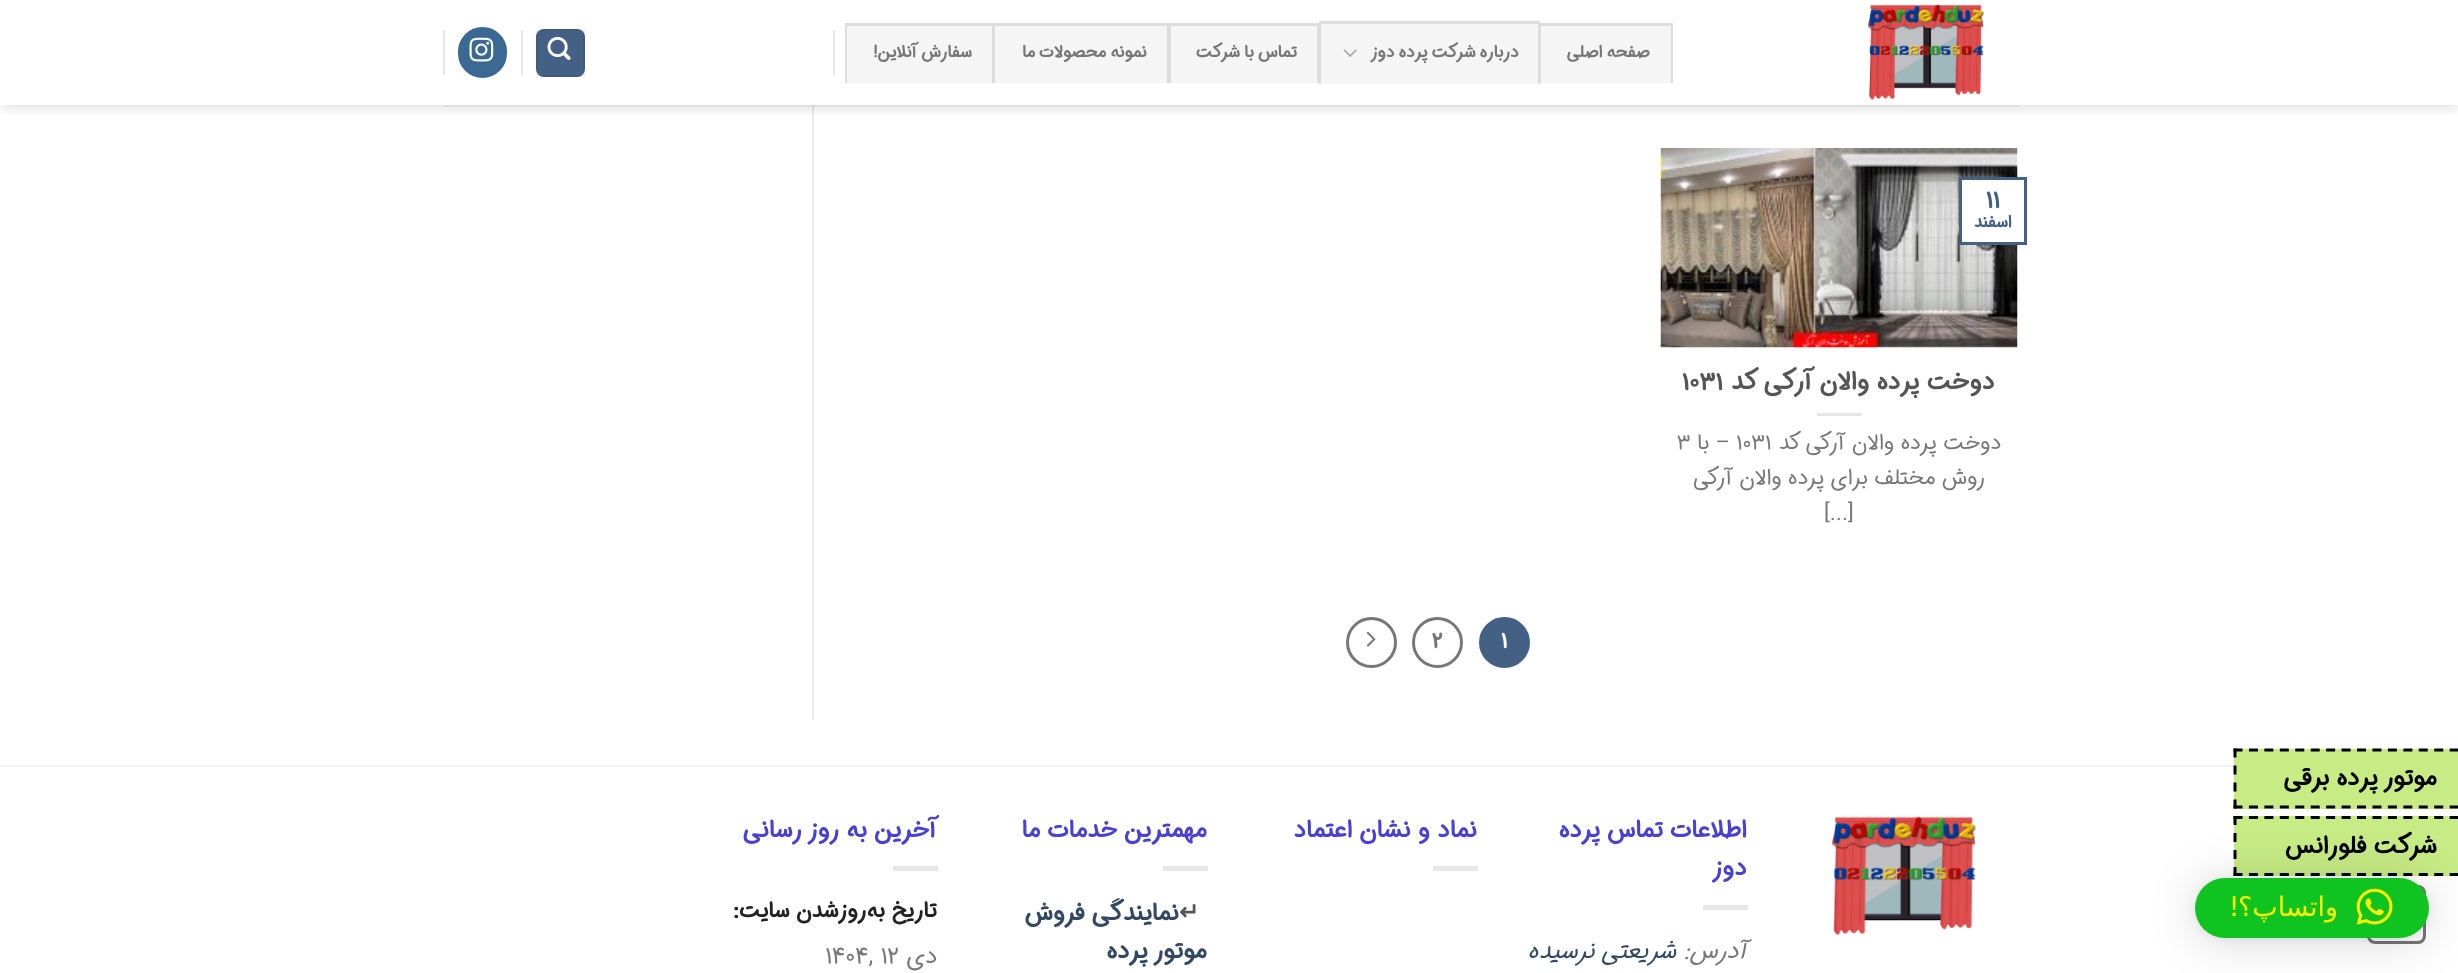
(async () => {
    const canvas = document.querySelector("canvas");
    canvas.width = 2458;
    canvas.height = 973;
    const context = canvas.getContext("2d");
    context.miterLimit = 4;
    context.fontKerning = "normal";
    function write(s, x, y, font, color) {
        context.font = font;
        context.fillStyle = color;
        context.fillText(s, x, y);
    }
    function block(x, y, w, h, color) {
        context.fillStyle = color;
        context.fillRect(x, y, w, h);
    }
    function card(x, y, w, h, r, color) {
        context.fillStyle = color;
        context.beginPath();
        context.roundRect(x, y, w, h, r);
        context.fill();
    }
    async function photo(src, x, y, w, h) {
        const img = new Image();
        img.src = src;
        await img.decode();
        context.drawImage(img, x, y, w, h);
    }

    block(0, 0, 2458, 973, "rgb(255, 255, 255)");
    block(812, 105, 2, 615, "rgb(236, 236, 236)");
    context.save();
    context.beginPath();
    context.rect(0, 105, 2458, 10);
    context.clip();
    context.fillStyle = "rgba(0, 0, 0, 0.15)";
    context.filter = "blur(7.5px)";
    context.beginPath();
    context.rect(2, 2, 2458, 105);
    context.fill();
    context.filter = "none";
    context.restore();
    await photo("media/1.png", 1867, 4, 117, 96);
    block(1541, 26, 130, 57, "rgba(0, 0, 0, 0.04)");
    block(1539, 23, 134, 3, "rgb(221, 221, 221)");
    block(1671, 23, 2, 60, "rgb(221, 221, 221)");
    block(1540, 23, 1, 60, "rgb(221, 221, 221)");
    context.letterSpacing = "0.3px";
    context.wordSpacing = "-1px";
    context.direction = "rtl";
    write("صفحه اصلی", 1650, 57, "bold 16.75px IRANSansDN", "rgb(119, 119, 119)");
    block(1321, 24, 217, 60, "rgba(0, 0, 0, 0.04)");
    block(1319, 21, 220, 3, "rgb(221, 221, 221)");
    block(1538, 21, 2, 63, "rgb(221, 221, 221)");
    block(1319, 21, 2, 63, "rgb(221, 221, 221)");
    write("درباره شرکت پرده دوز", 1519, 57, "bold 16.75px IRANSansDN", "rgb(119, 119, 119)");
    await photo("media/2.png", 1343, 49, 14, 8);
    block(1171, 26, 146, 57, "rgba(0, 0, 0, 0.04)");
    block(845, 23, 474, 3, "rgb(221, 221, 221)");
    block(1317, 23, 2, 60, "rgb(221, 221, 221)");
    block(1167, 23, 4, 60, "rgb(221, 221, 221)");
    write("تماس با شرکت", 1297, 57, "bold 16.75px IRANSansDN", "rgb(119, 119, 119)");
    block(995, 26, 172, 57, "rgba(0, 0, 0, 0.04)");
    block(992, 23, 3, 60, "rgb(221, 221, 221)");
    write("نمونه محصولات ما", 1147, 57, "bold 16.75px IRANSansDN", "rgb(119, 119, 119)");
    block(847, 26, 145, 57, "rgba(0, 0, 0, 0.04)");
    block(845, 23, 2, 60, "rgb(221, 221, 221)");
    write("سفارش آنلاین!", 972, 57, "bold 16.75px IRANSansDN", "rgb(119, 119, 119)");
    block(833, 30, 2, 45, "rgb(230, 230, 230)");
    card(536, 29, 49, 48, 8, "rgb(68, 96, 132)");
    context.strokeStyle = "rgba(0, 0, 0, 0.05)";
    context.lineWidth = 2;
    context.strokeRect(537, 30, 47, 46);
    await photo("media/3.png", 547, 36, 24, 24);
    block(521, 30, 2, 45, "rgb(230, 230, 230)");
    context.fillStyle = "rgb(59, 105, 148)";
    context.beginPath();
    context.roundRect(459, 28, 47, 49, 23.5);
    context.fill();
    context.strokeStyle = "rgb(59, 105, 148)";
    context.stroke();
    await photo("media/4.png", 469, 37, 25, 25);
    block(443, 30, 2, 45, "rgb(230, 230, 230)");
    block(443, 105, 1575, 2, "rgba(119, 119, 119, 0.1)");
    await photo("media/5.png", 1660, 148, 358, 200);
    block(1962, 180, 56, 62, "rgb(255, 255, 255)");
    context.strokeStyle = "rgb(68, 96, 132)";
    context.lineWidth = 3;
    context.strokeRect(1960.5, 178.5, 65, 65);
    context.letterSpacing = "0px";
    context.wordSpacing = "0px";
    context.direction = "ltr";
    write("۱۱", 1986, 207, "bold 24px IRANSansDN", "rgb(68, 96, 132)");
    context.direction = "rtl";
    write("اسفند", 2012, 227, "bold 16.75px IRANSansDN", "rgb(68, 96, 132)");
    write("دوخت پرده والان آرکی کد", 1995, 389, "bold 24.75px IRANSansDN", "rgb(85, 85, 85)");
    context.direction = "ltr";
    write("۱۰۳۱", 1682, 389, "bold 24.75px IRANSansDN", "rgb(85, 85, 85)");
    block(1817, 413, 45, 3, "rgb(230, 230, 230)");
    context.direction = "rtl";
    write("دوخت پرده والان آرکی کد", 2001, 449, "21.6px IRANSansDN", "rgb(119, 119, 119)");
    context.direction = "ltr";
    write("۱۰۳۱", 1736, 449, "21.6px IRANSansDN", "rgb(119, 119, 119)");
    context.direction = "rtl";
    write("– با", 1730, 449, "21.6px IRANSansDN", "rgb(119, 119, 119)");
    context.direction = "ltr";
    write("۳", 1677, 449, "21.6px IRANSansDN", "rgb(119, 119, 119)");
    context.direction = "rtl";
    write("روش مختلف برای پرده والان آرکی", 1985, 484, "21.6px IRANSansDN", "rgb(119, 119, 119)");
    context.direction = "ltr";
    write("[...]", 1824, 519, "21.6px IRANSansDN", "rgb(119, 119, 119)");
    context.fillStyle = "rgb(68, 96, 132)";
    context.beginPath();
    context.arc(1504.5, 642.5, 24, 0, Math.PI * 2);
    context.fill();
    context.stroke();
    write("۱", 1501, 647, "bold 22px IRANSansDN", "rgb(255, 255, 255)");
    context.beginPath();
    context.arc(1437.5, 642.5, 24, 0, Math.PI * 2);
    context.strokeStyle = "rgb(119, 119, 119)";
    context.stroke();
    write("۲", 1432, 647, "bold 22px IRANSansDN", "rgb(119, 119, 119)");
    context.beginPath();
    context.arc(1371.5, 642.5, 24, 0, Math.PI * 2);
    context.stroke();
    await photo("media/6.png", 1366, 631, 10, 16);
    block(2234, 749, 224, 60, "rgb(199, 235, 133)");
    context.beginPath();
    context.moveTo(2233.5, 750);
    context.lineTo(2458.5, 750);
    context.strokeStyle = "rgb(0, 0, 0)";
    context.setLineDash([9, 6.44]);
    context.stroke();
    context.beginPath();
    context.moveTo(2233.5, 807);
    context.lineTo(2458.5, 807);
    context.stroke();
    block(0, 765, 2234, 2, "rgb(242, 242, 242)");
    context.beginPath();
    context.moveTo(2235, 748.5);
    context.lineTo(2235, 808.5);
    context.setLineDash([9, 8]);
    context.stroke();
    context.direction = "rtl";
    write("موتور پرده برقی", 2437, 785, "bold 24px IRANSansDN", "rgb(0, 0, 0)");
    block(2234, 816, 224, 60, "rgb(199, 235, 133)");
    context.beginPath();
    context.moveTo(2233.5, 817.5);
    context.lineTo(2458.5, 817.5);
    context.setLineDash([9, 6.44]);
    context.stroke();
    context.beginPath();
    context.moveTo(2233.5, 874.5);
    context.lineTo(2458.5, 874.5);
    context.stroke();
    context.beginPath();
    context.moveTo(2235, 816);
    context.lineTo(2235, 876);
    context.setLineDash([9, 8]);
    context.stroke();
    write("شرکت فلورانس", 2437, 853, "bold 24px IRANSansDN", "rgb(0, 0, 0)");
    await photo("media/7.png", 1831, 816, 145, 120);
    write("اطلاعات تماس پرده", 1747, 837, "bold 24px IRANSansDN", "rgb(73, 65, 214)");
    write("دوز", 1747, 875, "bold 24px IRANSansDN", "rgb(73, 65, 214)");
    block(1703, 905, 45, 5, "rgb(230, 230, 230)");
    write("آدرس:", 1747, 958, "italic 24px IRANSansDN", "rgb(119, 119, 119)");
    write("شریعتی نرسیده", 1676, 958, "italic 24px IRANSansDN", "rgb(51, 72, 98)");
    write("نماد و نشان اعتماد", 1477, 837, "bold 24px IRANSansDN", "rgb(73, 65, 214)");
    block(1433, 866, 45, 5, "rgb(230, 230, 230)");
    write("مهمترین خدمات ما", 1207, 837, "bold 24px IRANSansDN", "rgb(73, 65, 214)");
    block(1163, 866, 45, 5, "rgb(230, 230, 230)");
    context.direction = "ltr";
    write("↵", 1179, 920, "bold 24px DejaVu Sans", "rgb(85, 85, 85)");
    context.direction = "rtl";
    write("نمایندگی فروش", 1179, 920, "bold 24px IRANSansDN", "rgb(51, 72, 98)");
    write("موتور پرده", 1207, 958, "bold 24px IRANSansDN", "rgb(51, 72, 98)");
    write("آخرین به روز رسانی", 937, 837, "bold 24px IRANSansDN", "rgb(73, 65, 214)");
    block(893, 866, 45, 5, "rgb(230, 230, 230)");
    write("تاریخ به‌روزشدن سایت:", 937, 917, "bold 21.6px IRANSansDN", "rgb(34, 34, 34)");
    write("دی", 937, 963, "24px IRANSansDN", "rgb(119, 119, 119)");
    context.direction = "ltr";
    write("۱۴۰۴, ۱۲", 825, 963, "24px IRANSansDN", "rgb(119, 119, 119)");
    context.beginPath();
    context.roundRect(2368.5, 886.5, 56, 56, 6.5);
    context.strokeStyle = "rgb(119, 119, 119)";
    context.setLineDash([]);
    context.stroke();
    context.fillStyle = "rgba(0, 0, 0, 0.16)";
    context.filter = "blur(24px)";
    context.beginPath();
    context.roundRect(2195, 881, 234, 60, 30);
    context.fill();
    context.filter = "none";
    context.fillStyle = "rgba(0, 0, 0, 0.06)";
    context.filter = "blur(4.5px)";
    context.beginPath();
    context.roundRect(2195, 879, 234, 60, 30);
    context.fill();
    context.filter = "none";
    card(2195, 878, 234, 60, 30, "rgb(15, 196, 33)");
    await photo("media/8.png", 2356, 888, 37, 37);
    context.direction = "rtl";
    write("واتساپ؟", 2338, 916, "27px DejaVu Sans", "rgb(255, 242, 0)");
    write("!", 2238, 916, "27px Inter", "rgb(255, 242, 0)");
})();
